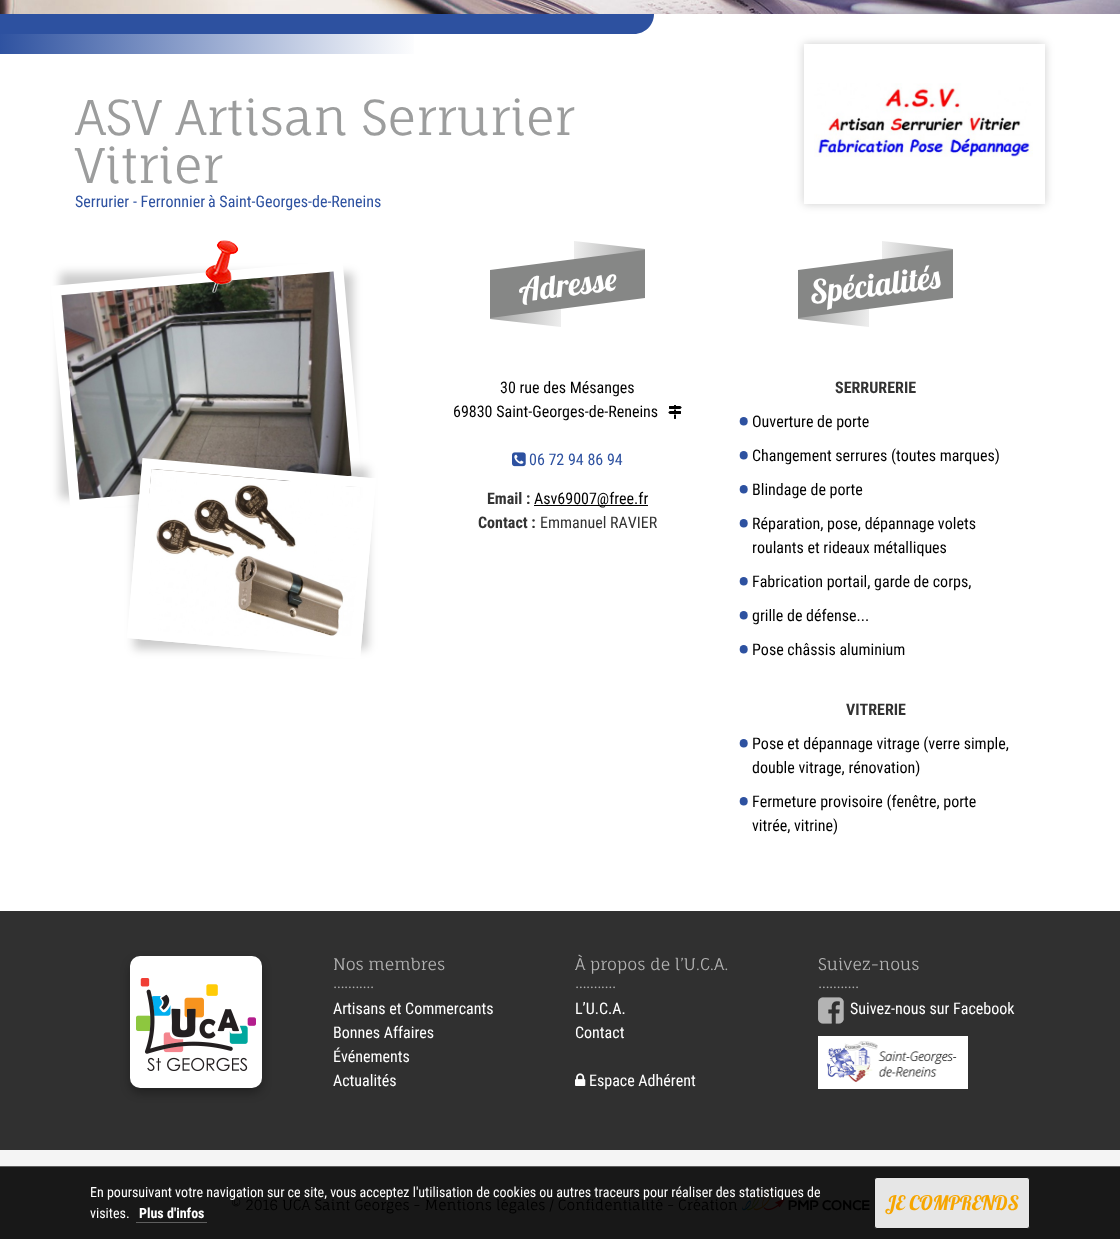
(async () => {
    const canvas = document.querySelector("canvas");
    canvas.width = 1120;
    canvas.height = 1239;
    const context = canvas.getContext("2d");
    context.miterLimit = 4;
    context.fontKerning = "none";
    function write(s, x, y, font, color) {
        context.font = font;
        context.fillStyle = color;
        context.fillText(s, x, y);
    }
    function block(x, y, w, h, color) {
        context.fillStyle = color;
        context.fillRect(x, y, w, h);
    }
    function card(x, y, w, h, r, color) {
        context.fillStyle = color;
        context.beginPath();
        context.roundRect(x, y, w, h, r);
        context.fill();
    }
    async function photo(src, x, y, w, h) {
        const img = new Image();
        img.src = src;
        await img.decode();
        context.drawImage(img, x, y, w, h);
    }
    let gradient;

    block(0, 0, 1120, 1239, "rgb(255, 255, 255)");
    await photo("media/1.png", 0, 0, 1120, 14);
    context.fillStyle = "rgb(45, 81, 160)";
    context.beginPath();
    context.moveTo(-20, 14);
    context.lineTo(654, 14);
    context.bezierCurveTo(654, 25, 645, 34, 634, 34);
    context.lineTo(-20, 34);
    context.closePath();
    context.fill();
    gradient = context.createLinearGradient(-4, 44, 419, 44);
    gradient.addColorStop(0, "rgb(45, 81, 160)");
    gradient.addColorStop(1, "rgb(255, 255, 255)");
    context.fillStyle = gradient;
    context.fillRect(0, 34, 414, 20);
    write("ASV Artisan Serrurier", 75, 135, "48px Fauna One", "rgb(156, 157, 157)");
    write("Vitrier", 75, 183, "48px Fauna One", "rgb(156, 157, 157)");
    write("Serrurier - Ferronnier", 75, 207, "16px Roboto Condensed", "rgb(45, 81, 160)");
    write("à Saint-Georges-de-Reneins", 208, 207, "16px Roboto Condensed", "rgb(45, 81, 160)");
    context.save();
    context.beginPath();
    context.moveTo(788, 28);
    context.lineTo(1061, 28);
    context.lineTo(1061, 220);
    context.lineTo(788, 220);
    context.closePath();
    context.moveTo(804, 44);
    context.lineTo(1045, 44);
    context.lineTo(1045, 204);
    context.lineTo(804, 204);
    context.closePath();
    context.clip("evenodd");
    context.fillStyle = "rgba(0, 0, 0, 0.2)";
    context.filter = "blur(5px)";
    context.beginPath();
    context.rect(804, 44, 241, 160);
    context.fill();
    context.filter = "none";
    context.restore();
    await photo("media/2.png", 814, 83, 219, 74);
    context.fillStyle = "rgba(0, 0, 0, 0.2)";
    context.filter = "blur(5px)";
    context.beginPath();
    context.rect(60, 273, 293, 225);
    context.fill();
    context.filter = "none";
    context.beginPath();
    context.moveTo(56, 290.5);
    context.lineTo(338, 266);
    context.lineTo(357, 480);
    context.lineTo(75, 505);
    context.closePath();
    context.strokeStyle = "rgb(255, 255, 255)";
    context.lineWidth = 10;
    context.stroke();
    await photo("media/4.png", 61, 271, 291, 229);
    await photo("media/3.png", 205, 240, 34, 53);
    context.save();
    context.beginPath();
    context.moveTo(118, 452);
    context.lineTo(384, 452);
    context.lineTo(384, 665);
    context.lineTo(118, 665);
    context.closePath();
    context.moveTo(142.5, 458);
    context.lineTo(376, 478.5);
    context.lineTo(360, 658.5);
    context.lineTo(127, 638);
    context.closePath();
    context.clip("evenodd");
    context.filter = "blur(5px)";
    context.beginPath();
    context.rect(134, 468, 234, 181);
    context.fill();
    context.filter = "none";
    context.restore();
    context.beginPath();
    context.moveTo(147, 463.5);
    context.lineTo(370.5, 483);
    context.lineTo(355.5, 653);
    context.lineTo(132.5, 633.5);
    context.closePath();
    context.stroke();
    await photo("media/5.png", 149, 469, 211, 167);
    gradient = context.createLinearGradient(645, 262, 574, 253);
    gradient.addColorStop(0, "rgb(158, 159, 158)");
    gradient.addColorStop(1, "rgb(237, 237, 237)");
    context.fillStyle = gradient;
    context.beginPath();
    context.moveTo(574, 241);
    context.lineTo(645, 249);
    context.lineTo(645, 274);
    context.lineTo(574, 266);
    context.closePath();
    context.fill();
    gradient = context.createLinearGradient(490, 306, 561, 315);
    gradient.addColorStop(0, "rgb(158, 159, 158)");
    gradient.addColorStop(1, "rgb(237, 237, 237)");
    context.fillStyle = gradient;
    context.beginPath();
    context.moveTo(490, 294);
    context.lineTo(561, 302);
    context.lineTo(561, 327);
    context.lineTo(490, 319);
    context.closePath();
    context.fill();
    context.fillStyle = "rgb(134, 135, 134)";
    context.beginPath();
    context.moveTo(490, 270);
    context.lineTo(645, 250);
    context.lineTo(645, 298);
    context.lineTo(490, 318);
    context.closePath();
    context.fill();
    context.font = "32px Lobster";
    context.fillStyle = "rgb(255, 255, 255)";
    context.save();
    context.translate(520, 302);
    context.rotate(-7 * Math.PI / 180);
    context.fillText("Adresse", 0, 0);
    context.restore();
    write("30 rue des Mésanges", 500, 393, "16px Roboto Condensed", "rgb(0, 0, 0)");
    write("69830 Saint-Georges-de-Reneins", 453, 417, "16px Roboto Condensed", "rgb(0, 0, 0)");
    await photo("media/6.png", 668, 405, 14, 14);
    await photo("media/7.png", 512, 452, 14, 15);
    write("06 72 94 86 94", 529, 465, "16px Roboto Condensed", "rgb(45, 81, 160)");
    write("Email :", 487, 504, "bold 16px Roboto Condensed", "rgb(51, 51, 51)");
    block(534, 505, 114, 1, "rgb(0, 0, 0)");
    write("Asv69007@free.fr", 534, 504, "16px Roboto Condensed", "rgb(0, 0, 0)");
    write("Contact :", 478, 528, "bold 16px Roboto Condensed", "rgb(51, 51, 51)");
    write("Emmanuel RAVIER", 540, 528, "16px Roboto Condensed", "rgb(51, 51, 51)");
    gradient = context.createLinearGradient(953, 262, 882, 253);
    gradient.addColorStop(0, "rgb(158, 159, 158)");
    gradient.addColorStop(1, "rgb(237, 237, 237)");
    context.fillStyle = gradient;
    context.beginPath();
    context.moveTo(882, 241);
    context.lineTo(953, 249);
    context.lineTo(953, 274);
    context.lineTo(882, 266);
    context.closePath();
    context.fill();
    gradient = context.createLinearGradient(798, 306, 869, 315);
    gradient.addColorStop(0, "rgb(158, 159, 158)");
    gradient.addColorStop(1, "rgb(237, 237, 237)");
    context.fillStyle = gradient;
    context.beginPath();
    context.moveTo(798, 294);
    context.lineTo(869, 302);
    context.lineTo(869, 327);
    context.lineTo(798, 319);
    context.closePath();
    context.fill();
    context.fillStyle = "rgb(134, 135, 134)";
    context.beginPath();
    context.moveTo(798, 270);
    context.lineTo(953, 250);
    context.lineTo(953, 298);
    context.lineTo(798, 318);
    context.closePath();
    context.fill();
    context.font = "32px Lobster";
    context.fillStyle = "rgb(255, 255, 255)";
    context.save();
    context.translate(811, 304);
    context.rotate(-7 * Math.PI / 180);
    context.fillText("Spécialités", 0, 0);
    context.restore();
    write("SERRURERIE", 835, 393, "bold 16px Roboto Condensed", "rgb(51, 51, 51)");
    write("•", 737, 436, "40px Roboto Condensed", "rgb(45, 81, 160)");
    write("Ouverture de porte", 752, 427, "16px Roboto Condensed", "rgb(0, 0, 0)");
    write("•", 737, 470, "40px Roboto Condensed", "rgb(45, 81, 160)");
    write("Changement serrures (toutes marques)", 752, 461, "16px Roboto Condensed", "rgb(0, 0, 0)");
    write("•", 737, 504, "40px Roboto Condensed", "rgb(45, 81, 160)");
    write("Blindage de porte", 752, 495, "16px Roboto Condensed", "rgb(0, 0, 0)");
    write("•", 737, 538, "40px Roboto Condensed", "rgb(45, 81, 160)");
    write("Réparation, pose, dépannage volets", 752, 529, "16px Roboto Condensed", "rgb(0, 0, 0)");
    write("roulants et rideaux métalliques", 752, 553, "16px Roboto Condensed", "rgb(0, 0, 0)");
    write("•", 737, 596, "40px Roboto Condensed", "rgb(45, 81, 160)");
    write("Fabrication portail, garde de corps,", 752, 587, "16px Roboto Condensed", "rgb(0, 0, 0)");
    write("•", 737, 630, "40px Roboto Condensed", "rgb(45, 81, 160)");
    write("grille de défense...", 752, 621, "16px Roboto Condensed", "rgb(0, 0, 0)");
    write("•", 737, 664, "40px Roboto Condensed", "rgb(45, 81, 160)");
    write("Pose châssis aluminium", 752, 655, "16px Roboto Condensed", "rgb(0, 0, 0)");
    write("VITRERIE", 846, 715, "bold 16px Roboto Condensed", "rgb(51, 51, 51)");
    write("•", 737, 758, "40px Roboto Condensed", "rgb(45, 81, 160)");
    write("Pose et dépannage vitrage (verre simple,", 752, 749, "16px Roboto Condensed", "rgb(0, 0, 0)");
    write("double vitrage, rénovation)", 752, 773, "16px Roboto Condensed", "rgb(0, 0, 0)");
    write("•", 737, 816, "40px Roboto Condensed", "rgb(45, 81, 160)");
    write("Fermeture provisoire (fenêtre, porte", 752, 807, "16px Roboto Condensed", "rgb(0, 0, 0)");
    write("vitrée, vitrine)", 752, 831, "16px Roboto Condensed", "rgb(0, 0, 0)");
    block(0, 911, 1120, 239, "rgb(48, 48, 48)");
    context.fillStyle = "rgba(0, 0, 0, 0.3)";
    context.filter = "blur(5px)";
    context.beginPath();
    context.roundRect(130, 961, 132, 132, 10);
    context.fill();
    context.filter = "none";
    card(130, 956, 132, 132, 10, "rgb(255, 255, 255)");
    await photo("media/8.png", 136, 978, 120, 93);
    write("Nos membres", 333, 970, "16px Fauna One", "rgb(178, 178, 178)");
    context.letterSpacing = "-0.5px";
    write("...........", 333, 988, "16px Fauna One", "rgb(178, 178, 178)");
    context.letterSpacing = "0px";
    write("Artisans et Commercants", 333, 1014, "16px Roboto Condensed", "rgb(255, 255, 255)");
    write("Bonnes Affaires", 333, 1038, "16px Roboto Condensed", "rgb(255, 255, 255)");
    write("Événements", 333, 1062, "16px Roboto Condensed", "rgb(255, 255, 255)");
    write("Actualités", 333, 1086, "16px Roboto Condensed", "rgb(255, 255, 255)");
    write("À propos de l’U.C.A.", 575, 970, "16px Fauna One", "rgb(178, 178, 178)");
    context.letterSpacing = "-0.5px";
    write("...........", 575, 988, "16px Fauna One", "rgb(178, 178, 178)");
    context.letterSpacing = "0px";
    write("L’U.C.A.", 575, 1014, "16px Roboto Condensed", "rgb(255, 255, 255)");
    write("Contact", 575, 1038, "16px Roboto Condensed", "rgb(255, 255, 255)");
    await photo("media/9.png", 575, 1073, 11, 13);
    write("Espace Adhérent", 589, 1086, "16px Roboto Condensed", "rgb(255, 255, 255)");
    write("Suivez-nous", 818, 970, "16px Fauna One", "rgb(178, 178, 178)");
    context.letterSpacing = "-0.5px";
    write("...........", 818, 988, "16px Fauna One", "rgb(178, 178, 178)");
    await photo("media/10.png", 818, 997, 26, 27);
    context.letterSpacing = "0px";
    write("Suivez-nous sur Facebook", 850, 1014, "16px Roboto Condensed", "rgb(255, 255, 255)");
    await photo("media/11.png", 818, 1036, 150, 53);
    block(0, 1150, 1120, 16, "rgb(244, 244, 244)");
    block(0, 1167, 1120, 72, "rgb(24, 24, 24)");
    write("© 2016 UCA Saint Georges - Mentions légales / Confidentialité - Création", 231, 1210, "14px Fauna One", "rgb(0, 0, 0)");
    await photo("media/15.png", 742, 1200, 9, 11);
    await photo("media/12.png", 746, 1196, 13, 15);
    await photo("media/13.png", 753, 1189, 19, 22);
    await photo("media/14.png", 763, 1198, 22, 13);
    write("PMP", 788, 1210, "bold 14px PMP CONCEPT", "rgb(0, 0, 0)");
    write("CONCE", 822, 1210, "bold 14px PMP CONCEPT", "rgb(0, 0, 0)");
    block(0, 1166, 1120, 1, "rgb(94, 94, 94)");
    write("En poursuivant votre navigation sur ce site, vous acceptez l'utilisation de cookies ou autres traceurs pour réaliser des statistiques de", 90, 1197, "14px Roboto Condensed", "rgb(255, 255, 255)");
    write("visites.", 90, 1218, "14px Roboto Condensed", "rgb(255, 255, 255)");
    write("Plus d'infos", 139, 1218, "bold 14px Roboto Condensed", "rgb(255, 255, 255)");
    block(136, 1222, 71, 1, "rgb(94, 94, 94)");
    context.fillStyle = "rgb(230, 230, 230)";
    context.beginPath();
    context.roundRect(874.5, 1177.5, 155, 51, 2.5);
    context.fill();
    context.strokeStyle = "rgb(20, 20, 20)";
    context.lineWidth = 1;
    context.stroke();
    write("JE COMPRENDS", 885, 1210, "20px Lobster", "rgb(247, 166, 0)");
})();
